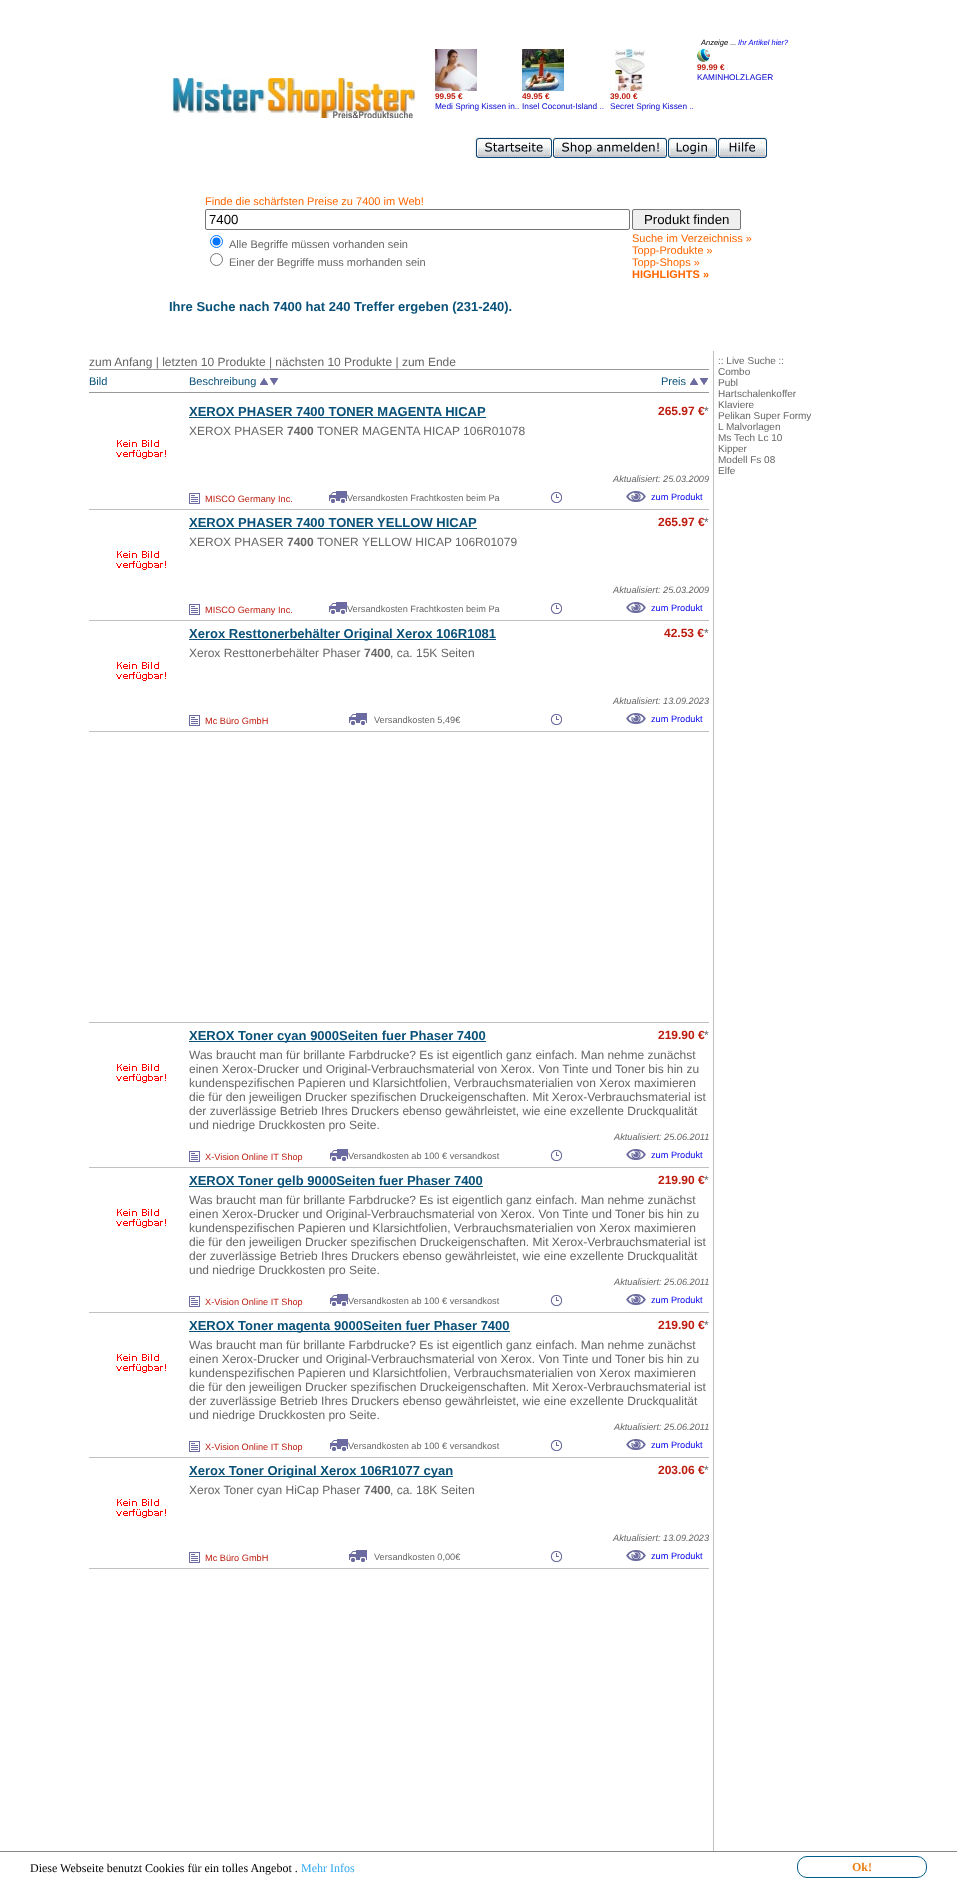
(async () => {
    const canvas = document.querySelector("canvas");
    canvas.width = 957;
    canvas.height = 1882;
    const context = canvas.getContext("2d");
    context.miterLimit = 4;
    context.fontKerning = "normal";
    function write(s, x, y, font, color) {
        context.font = font;
        context.fillStyle = color;
        context.fillText(s, x, y);
    }
    function block(x, y, w, h, color) {
        context.fillStyle = color;
        context.fillRect(x, y, w, h);
    }
    async function photo(src, x, y, w, h) {
        const img = new Image();
        img.src = src;
        await img.decode();
        context.drawImage(img, x, y, w, h);
    }

    block(0, 0, 957, 1882, "rgb(255, 255, 255)");
    await photo("media/1.png", 171, 78, 245, 40);
    write("Anzeige ...", 701, 45, "italic 7.5px Liberation Sans", "rgb(0, 0, 0)");
    write("Ihr Artikel hier?", 738, 45, "italic 7.5px Liberation Sans", "rgb(0, 0, 238)");
    await photo("media/2.png", 697, 49, 13, 13);
    write("99.99 €", 697, 70, "bold 8.25px Liberation Sans", "rgb(188, 27, 13)");
    write("KAMINHOLZLAGER", 697, 80, "8.25px Liberation Sans", "rgb(0, 0, 204)");
    await photo("media/3.png", 435, 49, 42, 42);
    write("99.95 €", 435, 99, "bold 8.25px Liberation Sans", "rgb(188, 27, 13)");
    write("Medi Spring Kissen in..", 435, 109, "8.25px Liberation Sans", "rgb(0, 0, 204)");
    await photo("media/4.png", 522, 49, 42, 42);
    write("49.95 €", 522, 99, "bold 8.25px Liberation Sans", "rgb(188, 27, 13)");
    write("Insel Coconut-Island ..", 522, 109, "8.25px Liberation Sans", "rgb(0, 0, 204)");
    await photo("media/5.png", 610, 49, 35, 42);
    write("39.00 €", 610, 99, "bold 8.25px Liberation Sans", "rgb(188, 27, 13)");
    write("Secret Spring Kissen ..", 610, 109, "8.25px Liberation Sans", "rgb(0, 0, 204)");
    await photo("media/6.png", 475, 137, 293, 21);
    write("Finde die schärfsten Preise zu 7400 im Web!", 205, 205, "11px Liberation Sans", "rgb(255, 102, 0)");
    context.beginPath();
    context.roundRect(205.5, 209.5, 424, 20, 1.5);
    context.strokeStyle = "rgb(118, 118, 118)";
    context.stroke();
    write("7400", 209, 224, "13.25px Liberation Sans", "rgb(0, 0, 0)");
    context.fillStyle = "rgb(239, 239, 239)";
    context.beginPath();
    context.roundRect(632.5, 209.5, 108, 20, 1.5);
    context.fill();
    context.stroke();
    write("Produkt finden", 644, 224, "13.25px Liberation Sans", "rgb(0, 0, 0)");
    context.beginPath();
    context.arc(216.5, 241.5, 6, 0, Math.PI * 2);
    context.strokeStyle = "rgb(0, 117, 255)";
    context.stroke();
    context.fillStyle = "rgb(0, 117, 255)";
    context.beginPath();
    context.arc(216.5, 241.5, 4, 0, Math.PI * 2);
    context.fill();
    write("Alle Begriffe müssen vorhanden sein", 229, 248, "11px Liberation Sans", "rgb(102, 102, 102)");
    context.beginPath();
    context.arc(216.5, 259.5, 6, 0, Math.PI * 2);
    context.strokeStyle = "rgb(118, 118, 118)";
    context.stroke();
    write("Einer der Begriffe muss morhanden sein", 229, 266, "11px Liberation Sans", "rgb(102, 102, 102)");
    write("Suche im Verzeichniss »", 632, 242, "11px Liberation Sans", "rgb(255, 102, 0)");
    write("Topp-Produkte »", 632, 254, "11px Liberation Sans", "rgb(255, 102, 0)");
    write("Topp-Shops »", 632, 266, "11px Liberation Sans", "rgb(255, 102, 0)");
    write("HIGHLIGHTS »", 632, 278, "bold 11px Liberation Sans", "rgb(255, 102, 0)");
    write("Ihre Suche nach 7400 hat 240 Treffer ergeben (231-240).", 169, 311, "bold 13px Liberation Sans", "rgb(9, 81, 121)");
    write("zum Anfang | letzten 10 Produkte | nächsten 10 Produkte | zum Ende", 89, 366, "12px Liberation Sans", "rgb(102, 102, 102)");
    block(89, 369, 620, 1, "rgb(153, 153, 153)");
    block(89, 392, 620, 1, "rgb(153, 153, 153)");
    write("Bild", 89, 385, "11px Liberation Sans", "rgb(9, 81, 121)");
    write("Beschreibung", 189, 385, "11px Liberation Sans", "rgb(9, 81, 121)");
    await photo("media/7.png", 260, 378, 8, 7);
    await photo("media/8.png", 270, 378, 8, 7);
    write("Preis", 661, 385, "11px Liberation Sans", "rgb(9, 81, 121)");
    await photo("media/7.png", 690, 378, 8, 7);
    await photo("media/8.png", 700, 378, 8, 7);
    await photo("media/9.png", 116, 440, 50, 19);
    write("XEROX PHASER 7400 TONER MAGENTA HICAP", 189, 416, "bold 13px Liberation Sans", "rgb(9, 81, 121)");
    block(189, 417, 297, 1, "rgb(9, 81, 121)");
    write("265.97 €", 658, 415, "bold 12px Liberation Sans", "rgb(188, 27, 13)");
    write("*", 704, 415, "12px Liberation Sans", "rgb(102, 102, 102)");
    write("XEROX PHASER", 189, 435, "12px Liberation Sans", "rgb(102, 102, 102)");
    write("7400", 287, 435, "bold 12px Liberation Sans", "rgb(102, 102, 102)");
    write("TONER MAGENTA HICAP 106R01078", 317, 435, "12px Liberation Sans", "rgb(102, 102, 102)");
    write("Aktualisiert: 25.03.2009", 613, 482, "italic 9.2px Liberation Sans", "rgb(102, 102, 102)");
    await photo("media/10.png", 189, 493, 11, 11);
    write("MISCO Germany Inc.", 205, 502, "9.2px Liberation Sans", "rgb(188, 27, 13)");
    await photo("media/11.png", 329, 491, 18, 12);
    write("Versandkosten Frachtkosten beim Pa", 347, 501, "9.2px Liberation Sans", "rgb(102, 102, 102)");
    await photo("media/12.png", 550, 492, 12, 11);
    await photo("media/13.png", 626, 491, 20, 11);
    write("zum Produkt", 651, 500, "9.2px Liberation Sans", "rgb(0, 0, 238)");
    block(89, 509, 620, 1, "rgb(192, 192, 192)");
    await photo("media/9.png", 116, 551, 50, 19);
    write("XEROX PHASER 7400 TONER YELLOW HICAP", 189, 527, "bold 13px Liberation Sans", "rgb(9, 81, 121)");
    block(189, 528, 288, 1, "rgb(9, 81, 121)");
    write("265.97 €", 658, 526, "bold 12px Liberation Sans", "rgb(188, 27, 13)");
    write("*", 704, 526, "12px Liberation Sans", "rgb(102, 102, 102)");
    write("XEROX PHASER", 189, 546, "12px Liberation Sans", "rgb(102, 102, 102)");
    write("7400", 287, 546, "bold 12px Liberation Sans", "rgb(102, 102, 102)");
    write("TONER YELLOW HICAP 106R01079", 317, 546, "12px Liberation Sans", "rgb(102, 102, 102)");
    write("Aktualisiert: 25.03.2009", 613, 593, "italic 9.2px Liberation Sans", "rgb(102, 102, 102)");
    await photo("media/10.png", 189, 604, 11, 11);
    write("MISCO Germany Inc.", 205, 613, "9.2px Liberation Sans", "rgb(188, 27, 13)");
    await photo("media/11.png", 329, 602, 18, 12);
    write("Versandkosten Frachtkosten beim Pa", 347, 612, "9.2px Liberation Sans", "rgb(102, 102, 102)");
    await photo("media/12.png", 550, 603, 12, 11);
    await photo("media/13.png", 626, 602, 20, 11);
    write("zum Produkt", 651, 611, "9.2px Liberation Sans", "rgb(0, 0, 238)");
    block(89, 620, 620, 1, "rgb(192, 192, 192)");
    await photo("media/9.png", 116, 662, 50, 19);
    block(189, 639, 307, 1, "rgb(9, 81, 121)");
    write("Xerox Resttonerbehälter Original Xerox 106R1081", 189, 638, "bold 13px Liberation Sans", "rgb(9, 81, 121)");
    write("42.53 €", 664, 637, "bold 12px Liberation Sans", "rgb(188, 27, 13)");
    write("*", 704, 637, "12px Liberation Sans", "rgb(102, 102, 102)");
    write("Xerox Resttonerbehälter Phaser", 189, 657, "12px Liberation Sans", "rgb(102, 102, 102)");
    write("7400", 364, 657, "bold 12px Liberation Sans", "rgb(102, 102, 102)");
    write(", ca. 15K Seiten", 390, 657, "12px Liberation Sans", "rgb(102, 102, 102)");
    write("Aktualisiert: 13.09.2023", 613, 704, "italic 9.2px Liberation Sans", "rgb(102, 102, 102)");
    await photo("media/10.png", 189, 715, 11, 11);
    write("Mc Büro GmbH", 205, 724, "9.2px Liberation Sans", "rgb(188, 27, 13)");
    await photo("media/11.png", 349, 713, 18, 12);
    write("Versandkosten 5,49€", 374, 723, "9.2px Liberation Sans", "rgb(102, 102, 102)");
    await photo("media/12.png", 550, 714, 12, 11);
    await photo("media/13.png", 626, 713, 20, 11);
    write("zum Produkt", 651, 722, "9.2px Liberation Sans", "rgb(0, 0, 238)");
    block(89, 731, 620, 1, "rgb(192, 192, 192)");
    block(89, 1022, 620, 1, "rgb(192, 192, 192)");
    await photo("media/9.png", 116, 1064, 50, 19);
    block(189, 1041, 297, 1, "rgb(9, 81, 121)");
    write("XEROX Toner cyan 9000Seiten fuer Phaser 7400", 189, 1040, "bold 13px Liberation Sans", "rgb(9, 81, 121)");
    write("219.90 €", 658, 1039, "bold 12px Liberation Sans", "rgb(188, 27, 13)");
    write("*", 704, 1039, "12px Liberation Sans", "rgb(102, 102, 102)");
    write("Was braucht man für brillante Farbdrucke? Es ist eigentlich ganz einfach. Man nehme zunächst", 189, 1059, "12px Liberation Sans", "rgb(102, 102, 102)");
    write("einen Xerox-Drucker und Original-Verbrauchsmaterial von Xerox. Von Tinte und Toner bis hin zu", 189, 1073, "12px Liberation Sans", "rgb(102, 102, 102)");
    write("kundenspezifischen Papieren und Klarsichtfolien, Verbrauchsmaterialien von Xerox maximieren", 189, 1087, "12px Liberation Sans", "rgb(102, 102, 102)");
    write("die für den jeweiligen Drucker spezifischen Druckeigenschaften. Mit Xerox-Verbrauchsmaterial ist", 189, 1101, "12px Liberation Sans", "rgb(102, 102, 102)");
    write("der zuverlässige Betrieb Ihres Druckers ebenso gewährleistet, wie eine exzellente Druckqualität", 189, 1115, "12px Liberation Sans", "rgb(102, 102, 102)");
    write("und niedrige Druckkosten pro Seite.", 189, 1129, "12px Liberation Sans", "rgb(102, 102, 102)");
    write("Aktualisiert: 25.06.2011", 614, 1140, "italic 9.2px Liberation Sans", "rgb(102, 102, 102)");
    await photo("media/10.png", 189, 1151, 11, 11);
    write("X-Vision Online IT Shop", 205, 1160, "9.2px Liberation Sans", "rgb(188, 27, 13)");
    await photo("media/11.png", 330, 1149, 18, 12);
    write("Versandkosten ab 100 € versandkost", 348, 1159, "9.2px Liberation Sans", "rgb(102, 102, 102)");
    await photo("media/12.png", 550, 1150, 12, 11);
    await photo("media/13.png", 626, 1149, 20, 11);
    write("zum Produkt", 651, 1158, "9.2px Liberation Sans", "rgb(0, 0, 238)");
    block(89, 1167, 620, 1, "rgb(192, 192, 192)");
    await photo("media/9.png", 116, 1209, 50, 19);
    block(189, 1186, 294, 1, "rgb(9, 81, 121)");
    write("XEROX Toner gelb 9000Seiten fuer Phaser 7400", 189, 1185, "bold 13px Liberation Sans", "rgb(9, 81, 121)");
    write("219.90 €", 658, 1184, "bold 12px Liberation Sans", "rgb(188, 27, 13)");
    write("*", 704, 1184, "12px Liberation Sans", "rgb(102, 102, 102)");
    write("Was braucht man für brillante Farbdrucke? Es ist eigentlich ganz einfach. Man nehme zunächst", 189, 1204, "12px Liberation Sans", "rgb(102, 102, 102)");
    write("einen Xerox-Drucker und Original-Verbrauchsmaterial von Xerox. Von Tinte und Toner bis hin zu", 189, 1218, "12px Liberation Sans", "rgb(102, 102, 102)");
    write("kundenspezifischen Papieren und Klarsichtfolien, Verbrauchsmaterialien von Xerox maximieren", 189, 1232, "12px Liberation Sans", "rgb(102, 102, 102)");
    write("die für den jeweiligen Drucker spezifischen Druckeigenschaften. Mit Xerox-Verbrauchsmaterial ist", 189, 1246, "12px Liberation Sans", "rgb(102, 102, 102)");
    write("der zuverlässige Betrieb Ihres Druckers ebenso gewährleistet, wie eine exzellente Druckqualität", 189, 1260, "12px Liberation Sans", "rgb(102, 102, 102)");
    write("und niedrige Druckkosten pro Seite.", 189, 1274, "12px Liberation Sans", "rgb(102, 102, 102)");
    write("Aktualisiert: 25.06.2011", 614, 1285, "italic 9.2px Liberation Sans", "rgb(102, 102, 102)");
    await photo("media/10.png", 189, 1296, 11, 11);
    write("X-Vision Online IT Shop", 205, 1305, "9.2px Liberation Sans", "rgb(188, 27, 13)");
    await photo("media/11.png", 330, 1294, 18, 12);
    write("Versandkosten ab 100 € versandkost", 348, 1304, "9.2px Liberation Sans", "rgb(102, 102, 102)");
    await photo("media/12.png", 550, 1295, 12, 11);
    await photo("media/13.png", 626, 1294, 20, 11);
    write("zum Produkt", 651, 1303, "9.2px Liberation Sans", "rgb(0, 0, 238)");
    block(89, 1312, 620, 1, "rgb(192, 192, 192)");
    await photo("media/9.png", 116, 1354, 50, 19);
    block(189, 1331, 321, 1, "rgb(9, 81, 121)");
    write("XEROX Toner magenta 9000Seiten fuer Phaser 7400", 189, 1330, "bold 13px Liberation Sans", "rgb(9, 81, 121)");
    write("219.90 €", 658, 1329, "bold 12px Liberation Sans", "rgb(188, 27, 13)");
    write("*", 704, 1329, "12px Liberation Sans", "rgb(102, 102, 102)");
    write("Was braucht man für brillante Farbdrucke? Es ist eigentlich ganz einfach. Man nehme zunächst", 189, 1349, "12px Liberation Sans", "rgb(102, 102, 102)");
    write("einen Xerox-Drucker und Original-Verbrauchsmaterial von Xerox. Von Tinte und Toner bis hin zu", 189, 1363, "12px Liberation Sans", "rgb(102, 102, 102)");
    write("kundenspezifischen Papieren und Klarsichtfolien, Verbrauchsmaterialien von Xerox maximieren", 189, 1377, "12px Liberation Sans", "rgb(102, 102, 102)");
    write("die für den jeweiligen Drucker spezifischen Druckeigenschaften. Mit Xerox-Verbrauchsmaterial ist", 189, 1391, "12px Liberation Sans", "rgb(102, 102, 102)");
    write("der zuverlässige Betrieb Ihres Druckers ebenso gewährleistet, wie eine exzellente Druckqualität", 189, 1405, "12px Liberation Sans", "rgb(102, 102, 102)");
    write("und niedrige Druckkosten pro Seite.", 189, 1419, "12px Liberation Sans", "rgb(102, 102, 102)");
    write("Aktualisiert: 25.06.2011", 614, 1430, "italic 9.2px Liberation Sans", "rgb(102, 102, 102)");
    await photo("media/10.png", 189, 1441, 11, 11);
    write("X-Vision Online IT Shop", 205, 1450, "9.2px Liberation Sans", "rgb(188, 27, 13)");
    await photo("media/11.png", 330, 1439, 18, 12);
    write("Versandkosten ab 100 € versandkost", 348, 1449, "9.2px Liberation Sans", "rgb(102, 102, 102)");
    await photo("media/12.png", 550, 1440, 12, 11);
    await photo("media/13.png", 626, 1439, 20, 11);
    write("zum Produkt", 651, 1448, "9.2px Liberation Sans", "rgb(0, 0, 238)");
    block(89, 1457, 620, 1, "rgb(192, 192, 192)");
    await photo("media/9.png", 116, 1499, 50, 19);
    block(189, 1476, 264, 1, "rgb(9, 81, 121)");
    write("Xerox Toner Original Xerox 106R1077 cyan", 189, 1475, "bold 13px Liberation Sans", "rgb(9, 81, 121)");
    write("203.06 €", 658, 1474, "bold 12px Liberation Sans", "rgb(188, 27, 13)");
    write("*", 704, 1474, "12px Liberation Sans", "rgb(102, 102, 102)");
    write("Xerox Toner cyan HiCap Phaser", 189, 1494, "12px Liberation Sans", "rgb(102, 102, 102)");
    write("7400", 364, 1494, "bold 12px Liberation Sans", "rgb(102, 102, 102)");
    write(", ca. 18K Seiten", 390, 1494, "12px Liberation Sans", "rgb(102, 102, 102)");
    write("Aktualisiert: 13.09.2023", 613, 1541, "italic 9.2px Liberation Sans", "rgb(102, 102, 102)");
    await photo("media/10.png", 189, 1552, 11, 11);
    write("Mc Büro GmbH", 205, 1561, "9.2px Liberation Sans", "rgb(188, 27, 13)");
    await photo("media/11.png", 349, 1550, 18, 12);
    write("Versandkosten 0,00€", 374, 1560, "9.2px Liberation Sans", "rgb(102, 102, 102)");
    await photo("media/12.png", 550, 1551, 12, 11);
    await photo("media/13.png", 626, 1550, 20, 11);
    write("zum Produkt", 651, 1559, "9.2px Liberation Sans", "rgb(0, 0, 238)");
    block(89, 1568, 620, 1, "rgb(192, 192, 192)");
    block(713, 351, 1, 1500, "rgb(192, 192, 192)");
    write(":: Live Suche ::", 718, 364, "10px Liberation Sans", "rgb(102, 102, 102)");
    write("Combo", 718, 375, "10px Liberation Sans", "rgb(102, 102, 102)");
    write("Publ", 718, 386, "10px Liberation Sans", "rgb(102, 102, 102)");
    write("Hartschalenkoffer", 718, 397, "10px Liberation Sans", "rgb(102, 102, 102)");
    write("Klaviere", 718, 408, "10px Liberation Sans", "rgb(102, 102, 102)");
    write("Pelikan Super Formy", 718, 419, "10px Liberation Sans", "rgb(102, 102, 102)");
    write("L Malvorlagen", 718, 430, "10px Liberation Sans", "rgb(102, 102, 102)");
    write("Ms Tech Lc 10", 718, 441, "10px Liberation Sans", "rgb(102, 102, 102)");
    write("Kipper", 718, 452, "10px Liberation Sans", "rgb(102, 102, 102)");
    write("Modell Fs 08", 718, 463, "10px Liberation Sans", "rgb(102, 102, 102)");
    write("Elfe", 718, 474, "10px Liberation Sans", "rgb(102, 102, 102)");
    block(0, 1851, 957, 1, "rgb(136, 136, 136)");
    write("Diese Webseite benutzt Cookies für ein tolles Angebot .", 30, 1872, "12px Liberation Serif", "rgb(0, 0, 0)");
    write("Mehr Infos", 301, 1872, "12px Liberation Serif", "rgb(49, 168, 240)");
    context.beginPath();
    context.roundRect(797.5, 1856.5, 129, 21, 9.5);
    context.strokeStyle = "rgb(0, 92, 138)";
    context.stroke();
    write("Ok!", 852, 1871, "bold 12px Liberation Serif", "rgb(234, 128, 24)");
})();
